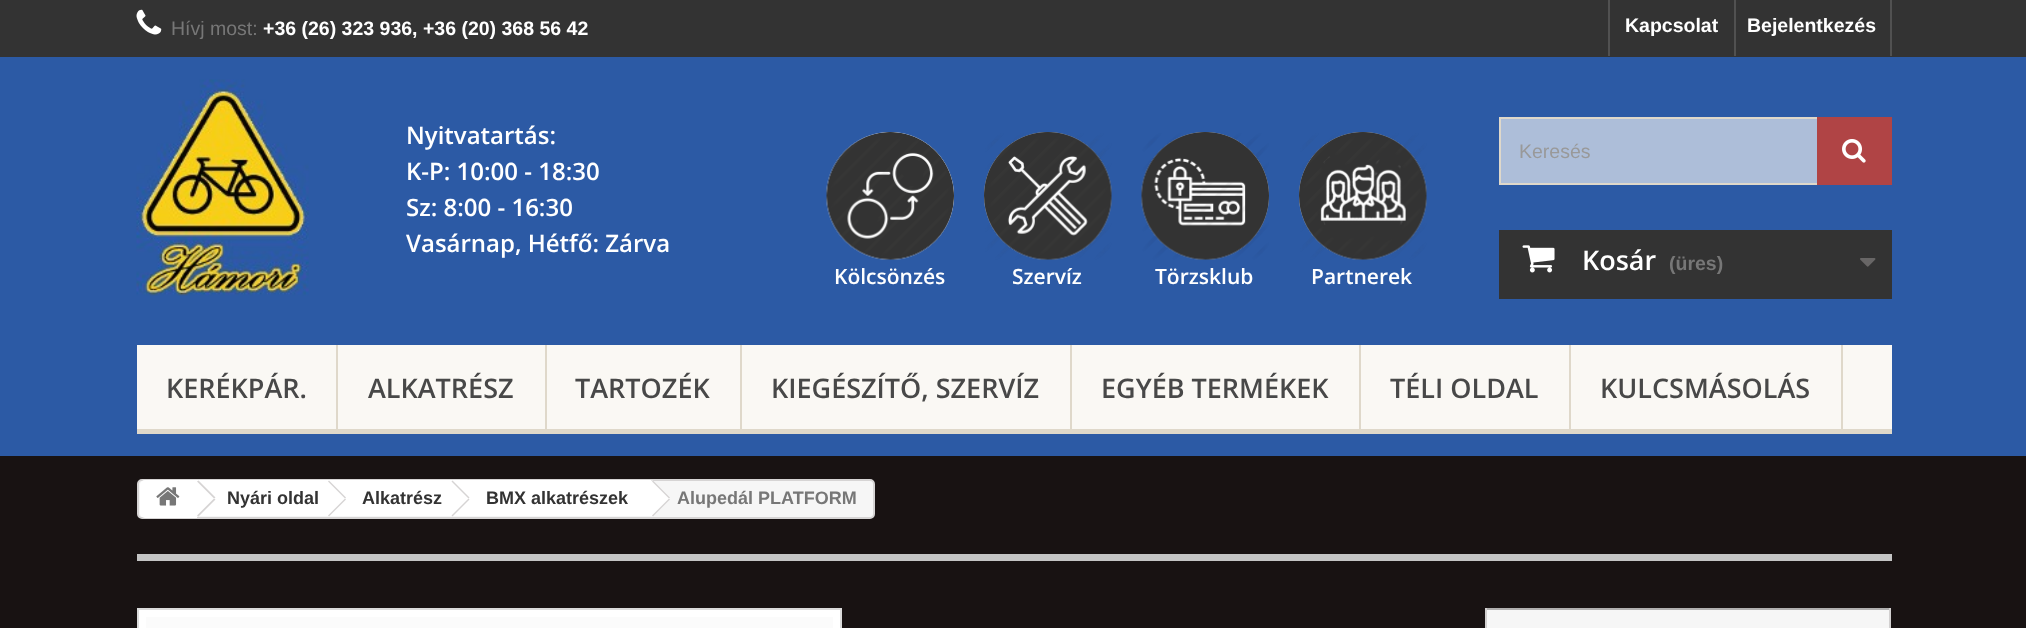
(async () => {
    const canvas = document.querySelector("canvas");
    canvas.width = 2026;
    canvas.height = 628;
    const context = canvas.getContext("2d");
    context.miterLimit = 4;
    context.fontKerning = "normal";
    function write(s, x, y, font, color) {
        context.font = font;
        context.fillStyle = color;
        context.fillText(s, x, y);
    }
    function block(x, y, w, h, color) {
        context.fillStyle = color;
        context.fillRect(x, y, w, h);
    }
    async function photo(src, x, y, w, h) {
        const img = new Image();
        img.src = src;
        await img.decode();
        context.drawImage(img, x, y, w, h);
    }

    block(0, 0, 2026, 628, "rgb(24, 18, 18)");
    block(0, 57, 2026, 399, "rgb(44, 90, 165)");
    block(0, 0, 2026, 57, "rgb(51, 51, 51)");
    await photo("media/1.png", 136, 9, 26, 26);
    write("Hívj most:", 171, 35, "19.5px Liberation Sans", "rgb(119, 119, 119)");
    write("+36 (26) 323 936, +36 (20) 368 56 42", 263, 35, "bold 19.5px Liberation Sans", "rgb(255, 255, 255)");
    block(1608, 0, 2, 56, "rgb(81, 81, 81)");
    write("Kapcsolat", 1625, 32, "bold 19.5px Liberation Sans", "rgb(255, 255, 255)");
    block(1890, 0, 2, 56, "rgb(81, 81, 81)");
    block(1734, 0, 2, 56, "rgb(81, 81, 81)");
    write("Bejelentkezés", 1747, 32, "bold 19.5px Liberation Sans", "rgb(255, 255, 255)");
    await photo("media/2.png", 136, 79, 173, 217);
    write("Nyitvatartás:", 406, 144, "600 24px Open Sans", "rgb(255, 255, 255)");
    write("K-P: 10:00 - 18:30", 406, 180, "600 24px Open Sans", "rgb(255, 255, 255)");
    write("Sz: 8:00 - 16:30", 406, 216, "600 24px Open Sans", "rgb(255, 255, 255)");
    write("Vasárnap, Hétfő: Zárva", 406, 252, "600 24px Open Sans", "rgb(255, 255, 255)");
    block(1501, 119, 316, 64, "rgb(173, 190, 217)");
    context.strokeStyle = "rgb(223, 216, 202)";
    context.lineWidth = 2;
    context.strokeRect(1500, 118, 391, 66);
    write("Keresés", 1519, 158, "19.5px Liberation Sans", "rgb(153, 153, 153)");
    block(1817, 117, 75, 68, "rgb(176, 68, 69)");
    await photo("media/3.png", 1842, 139, 24, 24);
    await photo("media/4.png", 826, 132, 128, 128);
    write("Kölcsönzés", 834, 284, "600 21px Open Sans", "rgb(255, 255, 255)");
    await photo("media/5.png", 984, 132, 128, 128);
    write("Szervíz", 1012, 284, "600 21px Open Sans", "rgb(255, 255, 255)");
    await photo("media/6.png", 1141, 132, 128, 128);
    write("Törzsklub", 1155, 284, "600 21px Open Sans", "rgb(255, 255, 255)");
    await photo("media/7.png", 1299, 132, 128, 128);
    write("Partnerek", 1311, 284, "600 21px Open Sans", "rgb(255, 255, 255)");
    block(1499, 230, 393, 69, "rgb(51, 51, 51)");
    await photo("media/8.png", 1522, 245, 33, 28);
    write("Kosár", 1582, 270, "600 27px Open Sans", "rgb(255, 255, 255)");
    write("(üres)", 1669, 270, "bold 19.5px Liberation Sans", "rgb(119, 119, 119)");
    await photo("media/9.png", 1860, 258, 16, 9);
    block(137, 345, 1755, 84, "rgb(250, 248, 244)");
    block(137, 429, 1755, 5, "rgb(223, 216, 202)");
    block(336, 345, 2, 89, "rgb(223, 216, 202)");
    write("KERÉKPÁR.", 166, 398, "600 27px Open Sans", "rgb(72, 72, 72)");
    block(545, 345, 2, 89, "rgb(223, 216, 202)");
    write("ALKATRÉSZ", 368, 398, "600 27px Open Sans", "rgb(72, 72, 72)");
    block(740, 345, 2, 89, "rgb(223, 216, 202)");
    write("TARTOZÉK", 575, 398, "600 27px Open Sans", "rgb(72, 72, 72)");
    block(1070, 345, 2, 89, "rgb(223, 216, 202)");
    write("KIEGÉSZÍTŐ, SZERVÍZ", 771, 398, "600 27px Open Sans", "rgb(72, 72, 72)");
    block(1359, 345, 2, 89, "rgb(223, 216, 202)");
    write("EGYÉB TERMÉKEK", 1101, 398, "600 27px Open Sans", "rgb(72, 72, 72)");
    block(1569, 345, 2, 89, "rgb(223, 216, 202)");
    write("TÉLI OLDAL", 1390, 398, "600 27px Open Sans", "rgb(72, 72, 72)");
    block(1841, 345, 2, 89, "rgb(223, 216, 202)");
    write("KULCSMÁSOLÁS", 1600, 398, "600 27px Open Sans", "rgb(72, 72, 72)");
    context.fillStyle = "rgb(246, 246, 246)";
    context.beginPath();
    context.roundRect(138, 480, 736, 38, 4);
    context.fill();
    context.strokeStyle = "rgb(214, 212, 212)";
    context.stroke();
    context.fillStyle = "rgb(255, 255, 255)";
    context.beginPath();
    context.roundRect(140, 480, 57, 38, [5, 0, 0, 5]);
    context.fill();
    await photo("media/10.png", 156, 487, 24, 19);
    block(197, 480, 133, 36, "rgb(255, 255, 255)");
    context.fillStyle = "rgb(214, 212, 212)";
    context.beginPath();
    context.moveTo(198.5, 480.5);
    context.lineTo(215.5, 497.5);
    context.lineTo(214, 498.5);
    context.lineTo(197, 481.5);
    context.closePath();
    context.fill();
    context.beginPath();
    context.moveTo(214, 498.5);
    context.lineTo(215.5, 499.5);
    context.lineTo(198.5, 516.5);
    context.lineTo(197, 515.5);
    context.closePath();
    context.fill();
    write("Nyári oldal", 227, 504, "bold 18px Liberation Sans", "rgb(51, 51, 51)");
    context.fillStyle = "rgb(255, 255, 255)";
    context.beginPath();
    context.moveTo(345, 481.5);
    context.lineTo(360, 496);
    context.bezierCurveTo(361, 497.5, 361, 499.5, 360, 500.5);
    context.lineTo(345, 515.5);
    context.bezierCurveTo(344, 516.5, 342, 516.5, 340.5, 515.5);
    context.lineTo(326, 500.5);
    context.bezierCurveTo(324.5, 499.5, 324.5, 497.5, 326, 496);
    context.lineTo(340.5, 481.5);
    context.bezierCurveTo(342, 480, 344, 480, 345, 481.5);
    context.closePath();
    context.fill();
    block(330, 480, 123, 36, "rgb(255, 255, 255)");
    context.fillStyle = "rgb(214, 212, 212)";
    context.beginPath();
    context.moveTo(329, 480.5);
    context.lineTo(346, 497.5);
    context.lineTo(345, 498.5);
    context.lineTo(328, 481.5);
    context.closePath();
    context.fill();
    context.beginPath();
    context.moveTo(345, 498.5);
    context.lineTo(346, 499.5);
    context.lineTo(329, 516.5);
    context.lineTo(328, 515.5);
    context.closePath();
    context.fill();
    write("Alkatrész", 362, 504, "bold 18px Liberation Sans", "rgb(51, 51, 51)");
    context.fillStyle = "rgb(255, 255, 255)";
    context.beginPath();
    context.moveTo(468.5, 481.5);
    context.lineTo(483.5, 496);
    context.bezierCurveTo(484.5, 497.5, 484.5, 499.5, 483.5, 500.5);
    context.lineTo(468.5, 515.5);
    context.bezierCurveTo(467.5, 516.5, 465.5, 516.5, 464.5, 515.5);
    context.lineTo(449.5, 500.5);
    context.bezierCurveTo(448, 499.5, 448, 497.5, 449.5, 496);
    context.lineTo(464.5, 481.5);
    context.bezierCurveTo(465.5, 480, 467.5, 480, 468.5, 481.5);
    context.closePath();
    context.fill();
    block(453, 480, 198, 36, "rgb(255, 255, 255)");
    context.fillStyle = "rgb(214, 212, 212)";
    context.beginPath();
    context.moveTo(452.5, 480.5);
    context.lineTo(469.5, 497.5);
    context.lineTo(468.5, 498.5);
    context.lineTo(451.5, 481.5);
    context.closePath();
    context.fill();
    context.beginPath();
    context.moveTo(468.5, 498.5);
    context.lineTo(469.5, 499.5);
    context.lineTo(452.5, 516.5);
    context.lineTo(451.5, 515.5);
    context.closePath();
    context.fill();
    write("BMX alkatrészek", 486, 504, "bold 18px Liberation Sans", "rgb(51, 51, 51)");
    context.fillStyle = "rgb(255, 255, 255)";
    context.beginPath();
    context.moveTo(654, 481.5);
    context.lineTo(669, 496);
    context.bezierCurveTo(670, 497.5, 670, 499.5, 669, 500.5);
    context.lineTo(654, 515.5);
    context.bezierCurveTo(653, 516.5, 651, 516.5, 650, 515.5);
    context.lineTo(635, 500.5);
    context.bezierCurveTo(634, 499.5, 634, 497.5, 635, 496);
    context.lineTo(650, 481.5);
    context.bezierCurveTo(651, 480, 653, 480, 654, 481.5);
    context.closePath();
    context.fill();
    context.fillStyle = "rgb(214, 212, 212)";
    context.beginPath();
    context.moveTo(653, 480.5);
    context.lineTo(670, 497.5);
    context.lineTo(669, 498.5);
    context.lineTo(652, 481.5);
    context.closePath();
    context.fill();
    context.beginPath();
    context.moveTo(669, 498.5);
    context.lineTo(670, 499.5);
    context.lineTo(653, 516.5);
    context.lineTo(652, 515.5);
    context.closePath();
    context.fill();
    write("Alupedál PLATFORM", 677, 504, "bold 18px Liberation Sans", "rgb(119, 119, 119)");
    block(137, 554, 1755, 7, "rgb(196, 196, 196)");
    context.fillStyle = "rgb(255, 255, 255)";
    context.beginPath();
    context.rect(138, 609, 703, 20);
    context.fill();
    context.strokeStyle = "rgb(219, 219, 219)";
    context.stroke();
    block(146, 617, 687, 11, "rgb(251, 251, 251)");
    block(1487, 610, 402, 18, "rgb(246, 246, 246)");
    block(1485, 608, 405, 2, "rgb(176, 175, 175)");
    block(1889, 608, 2, 20, "rgb(210, 208, 208)");
    block(1485, 608, 2, 20, "rgb(210, 208, 208)");
})();
